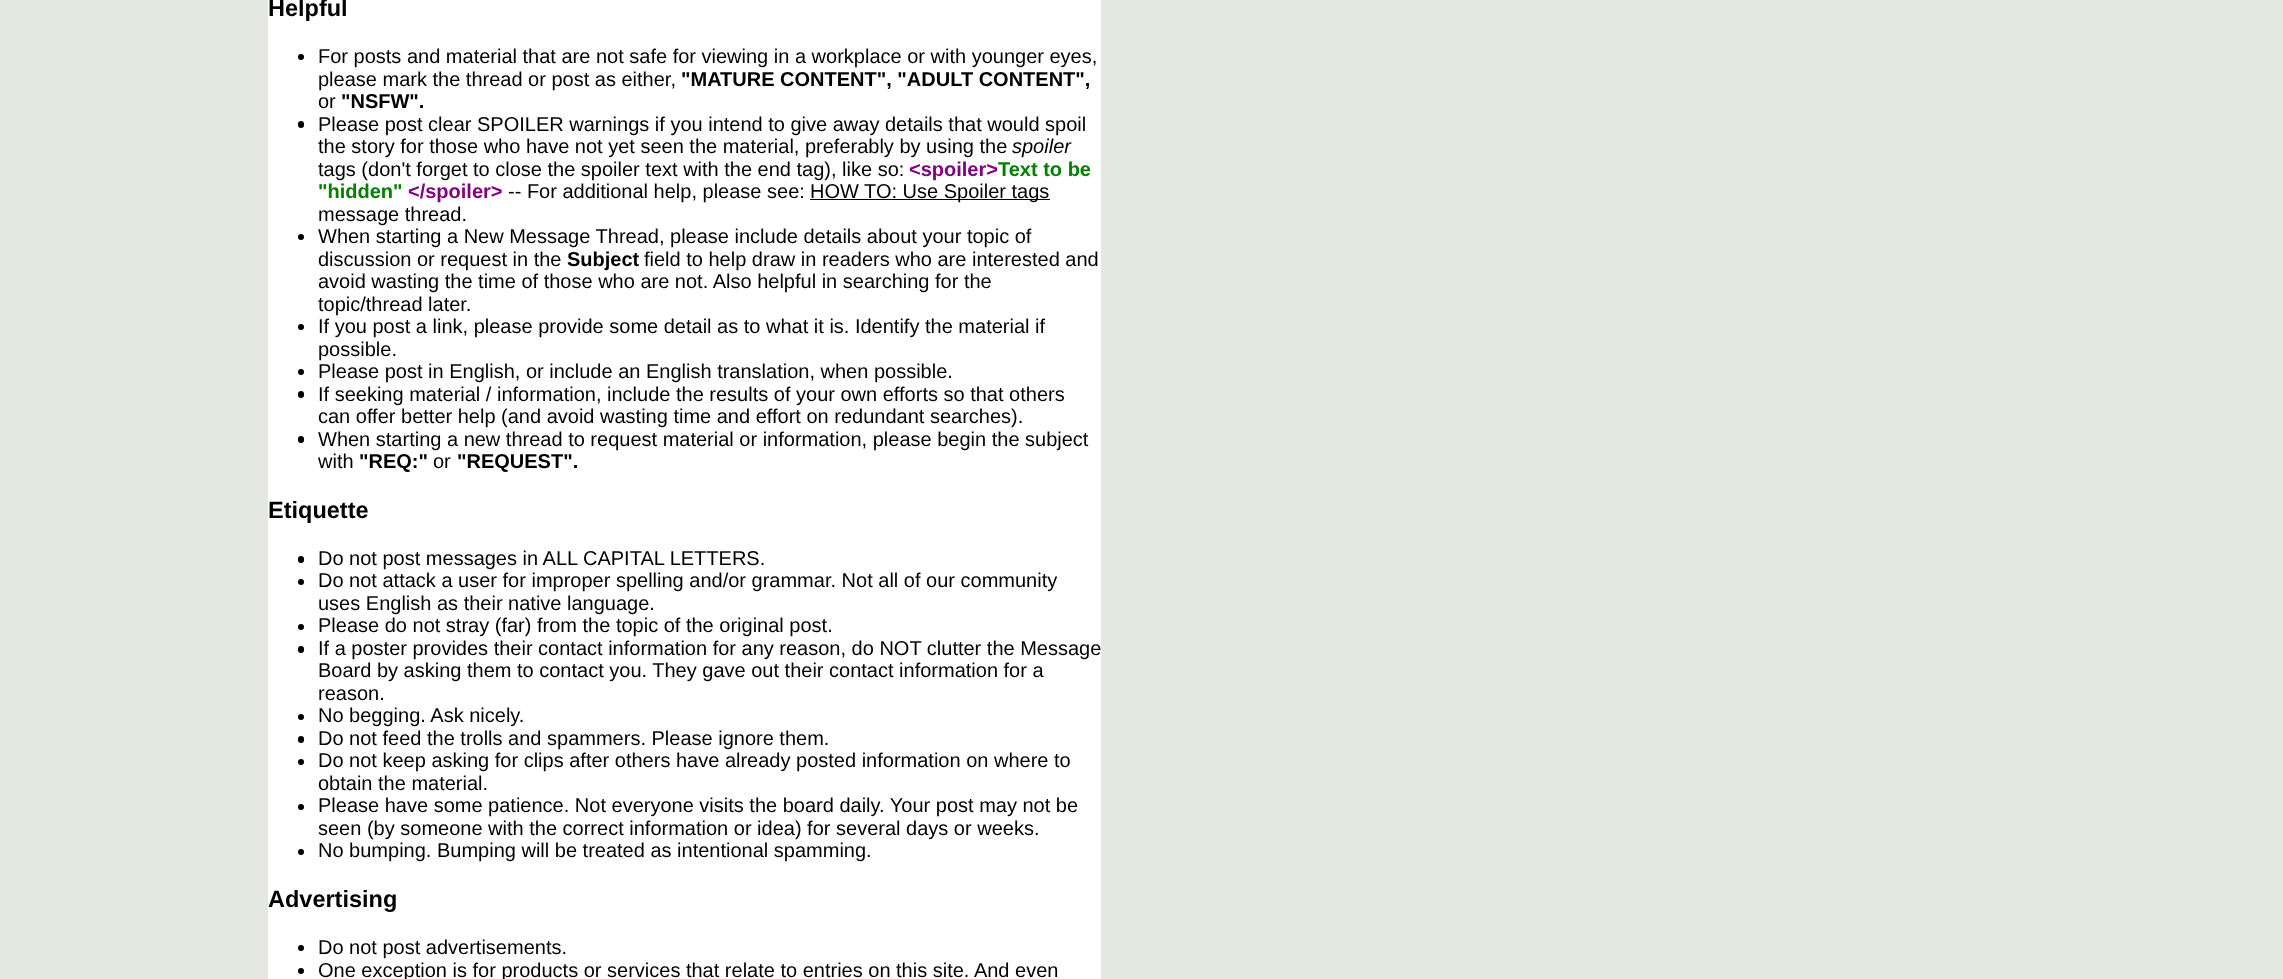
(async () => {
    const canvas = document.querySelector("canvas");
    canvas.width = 2283;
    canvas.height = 979;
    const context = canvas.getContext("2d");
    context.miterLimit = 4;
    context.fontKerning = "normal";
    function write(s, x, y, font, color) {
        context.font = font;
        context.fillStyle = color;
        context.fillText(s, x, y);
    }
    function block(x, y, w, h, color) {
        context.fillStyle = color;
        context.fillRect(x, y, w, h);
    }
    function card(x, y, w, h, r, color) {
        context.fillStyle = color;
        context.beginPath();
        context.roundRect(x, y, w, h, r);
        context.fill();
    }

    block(0, 0, 2283, 979, "rgb(228, 232, 224)");
    block(268, 0, 833, 979, "rgb(255, 255, 255)");
    write("Helpful", 268, 16, "bold 23.5px Liberation Sans", "rgb(0, 0, 0)");
    context.beginPath();
    context.arc(301, 57, 3, 0, Math.PI * 2);
    context.fill();
    write("For posts and material that are not safe for viewing in a workplace or with younger eyes,", 318, 63, "20px Liberation Sans", "rgb(0, 0, 0)");
    write("please mark the thread or post as either,", 318, 86, "20px Liberation Sans", "rgb(0, 0, 0)");
    write("\"MATURE CONTENT\", \"ADULT CONTENT\",", 681, 86, "bold 20px Liberation Sans", "rgb(0, 0, 0)");
    write("or", 318, 108, "20px Liberation Sans", "rgb(0, 0, 0)");
    write("\"NSFW\".", 341, 108, "bold 20px Liberation Sans", "rgb(0, 0, 0)");
    card(298, 121, 6, 7, 3, "rgb(0, 0, 0)");
    write("Please post clear SPOILER warnings if you intend to give away details that would spoil", 318, 131, "20px Liberation Sans", "rgb(0, 0, 0)");
    write("the story for those who have not yet seen the material, preferably by using the", 318, 153, "20px Liberation Sans", "rgb(0, 0, 0)");
    write("spoiler", 1012, 153, "italic 20px Liberation Sans", "rgb(0, 0, 0)");
    write("tags (don't forget to close the spoiler text with the end tag), like so:", 318, 176, "20px Liberation Sans", "rgb(0, 0, 0)");
    write("<spoiler>", 909, 176, "bold 20px Liberation Sans", "rgb(128, 0, 128)");
    write("Text to be", 998, 176, "bold 20px Liberation Sans", "rgb(0, 128, 0)");
    write("\"hidden\"", 318, 198, "bold 20px Liberation Sans", "rgb(0, 128, 0)");
    write("<\/spoiler>", 408, 198, "bold 20px Liberation Sans", "rgb(128, 0, 128)");
    write("-- For additional help, please see:", 508, 198, "20px Liberation Sans", "rgb(0, 0, 0)");
    block(810, 199, 240, 1, "rgb(0, 0, 0)");
    write("HOW TO: Use Spoiler tags", 810, 198, "20px Liberation Sans", "rgb(0, 0, 0)");
    write("message thread.", 318, 221, "20px Liberation Sans", "rgb(0, 0, 0)");
    context.beginPath();
    context.arc(301, 237, 3, 0, Math.PI * 2);
    context.fill();
    write("When starting a New Message Thread, please include details about your topic of", 318, 243, "20px Liberation Sans", "rgb(0, 0, 0)");
    write("discussion or request in the", 318, 266, "20px Liberation Sans", "rgb(0, 0, 0)");
    write("Subject", 567, 266, "bold 20px Liberation Sans", "rgb(0, 0, 0)");
    write("field to help draw in readers who are interested and", 644, 266, "20px Liberation Sans", "rgb(0, 0, 0)");
    write("avoid wasting the time of those who are not. Also helpful in searching for the", 318, 288, "20px Liberation Sans", "rgb(0, 0, 0)");
    write("topic/thread later.", 318, 311, "20px Liberation Sans", "rgb(0, 0, 0)");
    context.beginPath();
    context.arc(301, 327, 3, 0, Math.PI * 2);
    context.fill();
    write("If you post a link, please provide some detail as to what it is. Identify the material if", 318, 333, "20px Liberation Sans", "rgb(0, 0, 0)");
    write("possible.", 318, 356, "20px Liberation Sans", "rgb(0, 0, 0)");
    context.beginPath();
    context.arc(301, 372, 3, 0, Math.PI * 2);
    context.fill();
    write("Please post in English, or include an English translation, when possible.", 318, 378, "20px Liberation Sans", "rgb(0, 0, 0)");
    card(298, 391, 6, 7, 3, "rgb(0, 0, 0)");
    write("If seeking material / information, include the results of your own efforts so that others", 318, 401, "20px Liberation Sans", "rgb(0, 0, 0)");
    write("can offer better help (and avoid wasting time and effort on redundant searches).", 318, 423, "20px Liberation Sans", "rgb(0, 0, 0)");
    card(298, 436, 6, 7, 3, "rgb(0, 0, 0)");
    write("When starting a new thread to request material or information, please begin the subject", 318, 446, "20px Liberation Sans", "rgb(0, 0, 0)");
    write("with", 318, 468, "20px Liberation Sans", "rgb(0, 0, 0)");
    write("\"REQ:\"", 359, 468, "bold 20px Liberation Sans", "rgb(0, 0, 0)");
    write("or", 433, 468, "20px Liberation Sans", "rgb(0, 0, 0)");
    write("\"REQUEST\".", 457, 468, "bold 20px Liberation Sans", "rgb(0, 0, 0)");
    write("Etiquette", 268, 518, "bold 23.5px Liberation Sans", "rgb(0, 0, 0)");
    card(298, 556, 6, 7, 3, "rgb(0, 0, 0)");
    write("Do not post messages in ALL CAPITAL LETTERS.", 318, 565, "20px Liberation Sans", "rgb(0, 0, 0)");
    context.beginPath();
    context.arc(301, 582, 3, 0, Math.PI * 2);
    context.fill();
    write("Do not attack a user for improper spelling and/or grammar. Not all of our community", 318, 587, "20px Liberation Sans", "rgb(0, 0, 0)");
    write("uses English as their native language.", 318, 610, "20px Liberation Sans", "rgb(0, 0, 0)");
    context.beginPath();
    context.arc(301, 627, 3, 0, Math.PI * 2);
    context.fill();
    write("Please do not stray (far) from the topic of the original post.", 318, 632, "20px Liberation Sans", "rgb(0, 0, 0)");
    card(298, 646, 6, 7, 3, "rgb(0, 0, 0)");
    write("If a poster provides their contact information for any reason, do NOT clutter the Message", 318, 655, "20px Liberation Sans", "rgb(0, 0, 0)");
    write("Board by asking them to contact you. They gave out their contact information for a", 318, 677, "20px Liberation Sans", "rgb(0, 0, 0)");
    write("reason.", 318, 700, "20px Liberation Sans", "rgb(0, 0, 0)");
    context.beginPath();
    context.arc(301, 717, 3, 0, Math.PI * 2);
    context.fill();
    write("No begging. Ask nicely.", 318, 722, "20px Liberation Sans", "rgb(0, 0, 0)");
    card(298, 736, 6, 7, 3, "rgb(0, 0, 0)");
    write("Do not feed the trolls and spammers. Please ignore them.", 318, 745, "20px Liberation Sans", "rgb(0, 0, 0)");
    context.beginPath();
    context.arc(301, 762, 3, 0, Math.PI * 2);
    context.fill();
    write("Do not keep asking for clips after others have already posted information on where to", 318, 767, "20px Liberation Sans", "rgb(0, 0, 0)");
    write("obtain the material.", 318, 790, "20px Liberation Sans", "rgb(0, 0, 0)");
    context.beginPath();
    context.arc(301, 807, 3, 0, Math.PI * 2);
    context.fill();
    write("Please have some patience. Not everyone visits the board daily. Your post may not be", 318, 812, "20px Liberation Sans", "rgb(0, 0, 0)");
    write("seen (by someone with the correct information or idea) for several days or weeks.", 318, 835, "20px Liberation Sans", "rgb(0, 0, 0)");
    context.beginPath();
    context.arc(301, 852, 3, 0, Math.PI * 2);
    context.fill();
    write("No bumping. Bumping will be treated as intentional spamming.", 318, 857, "20px Liberation Sans", "rgb(0, 0, 0)");
    write("Advertising", 268, 907, "bold 23.5px Liberation Sans", "rgb(0, 0, 0)");
    context.beginPath();
    context.arc(301, 948, 3, 0, Math.PI * 2);
    context.fill();
    write("Do not post advertisements.", 318, 954, "20px Liberation Sans", "rgb(0, 0, 0)");
    context.beginPath();
    context.arc(301, 971, 3, 0, Math.PI * 2);
    context.fill();
    write("One exception is for products or services that relate to entries on this site. And even", 318, 977, "20px Liberation Sans", "rgb(0, 0, 0)");
})();
